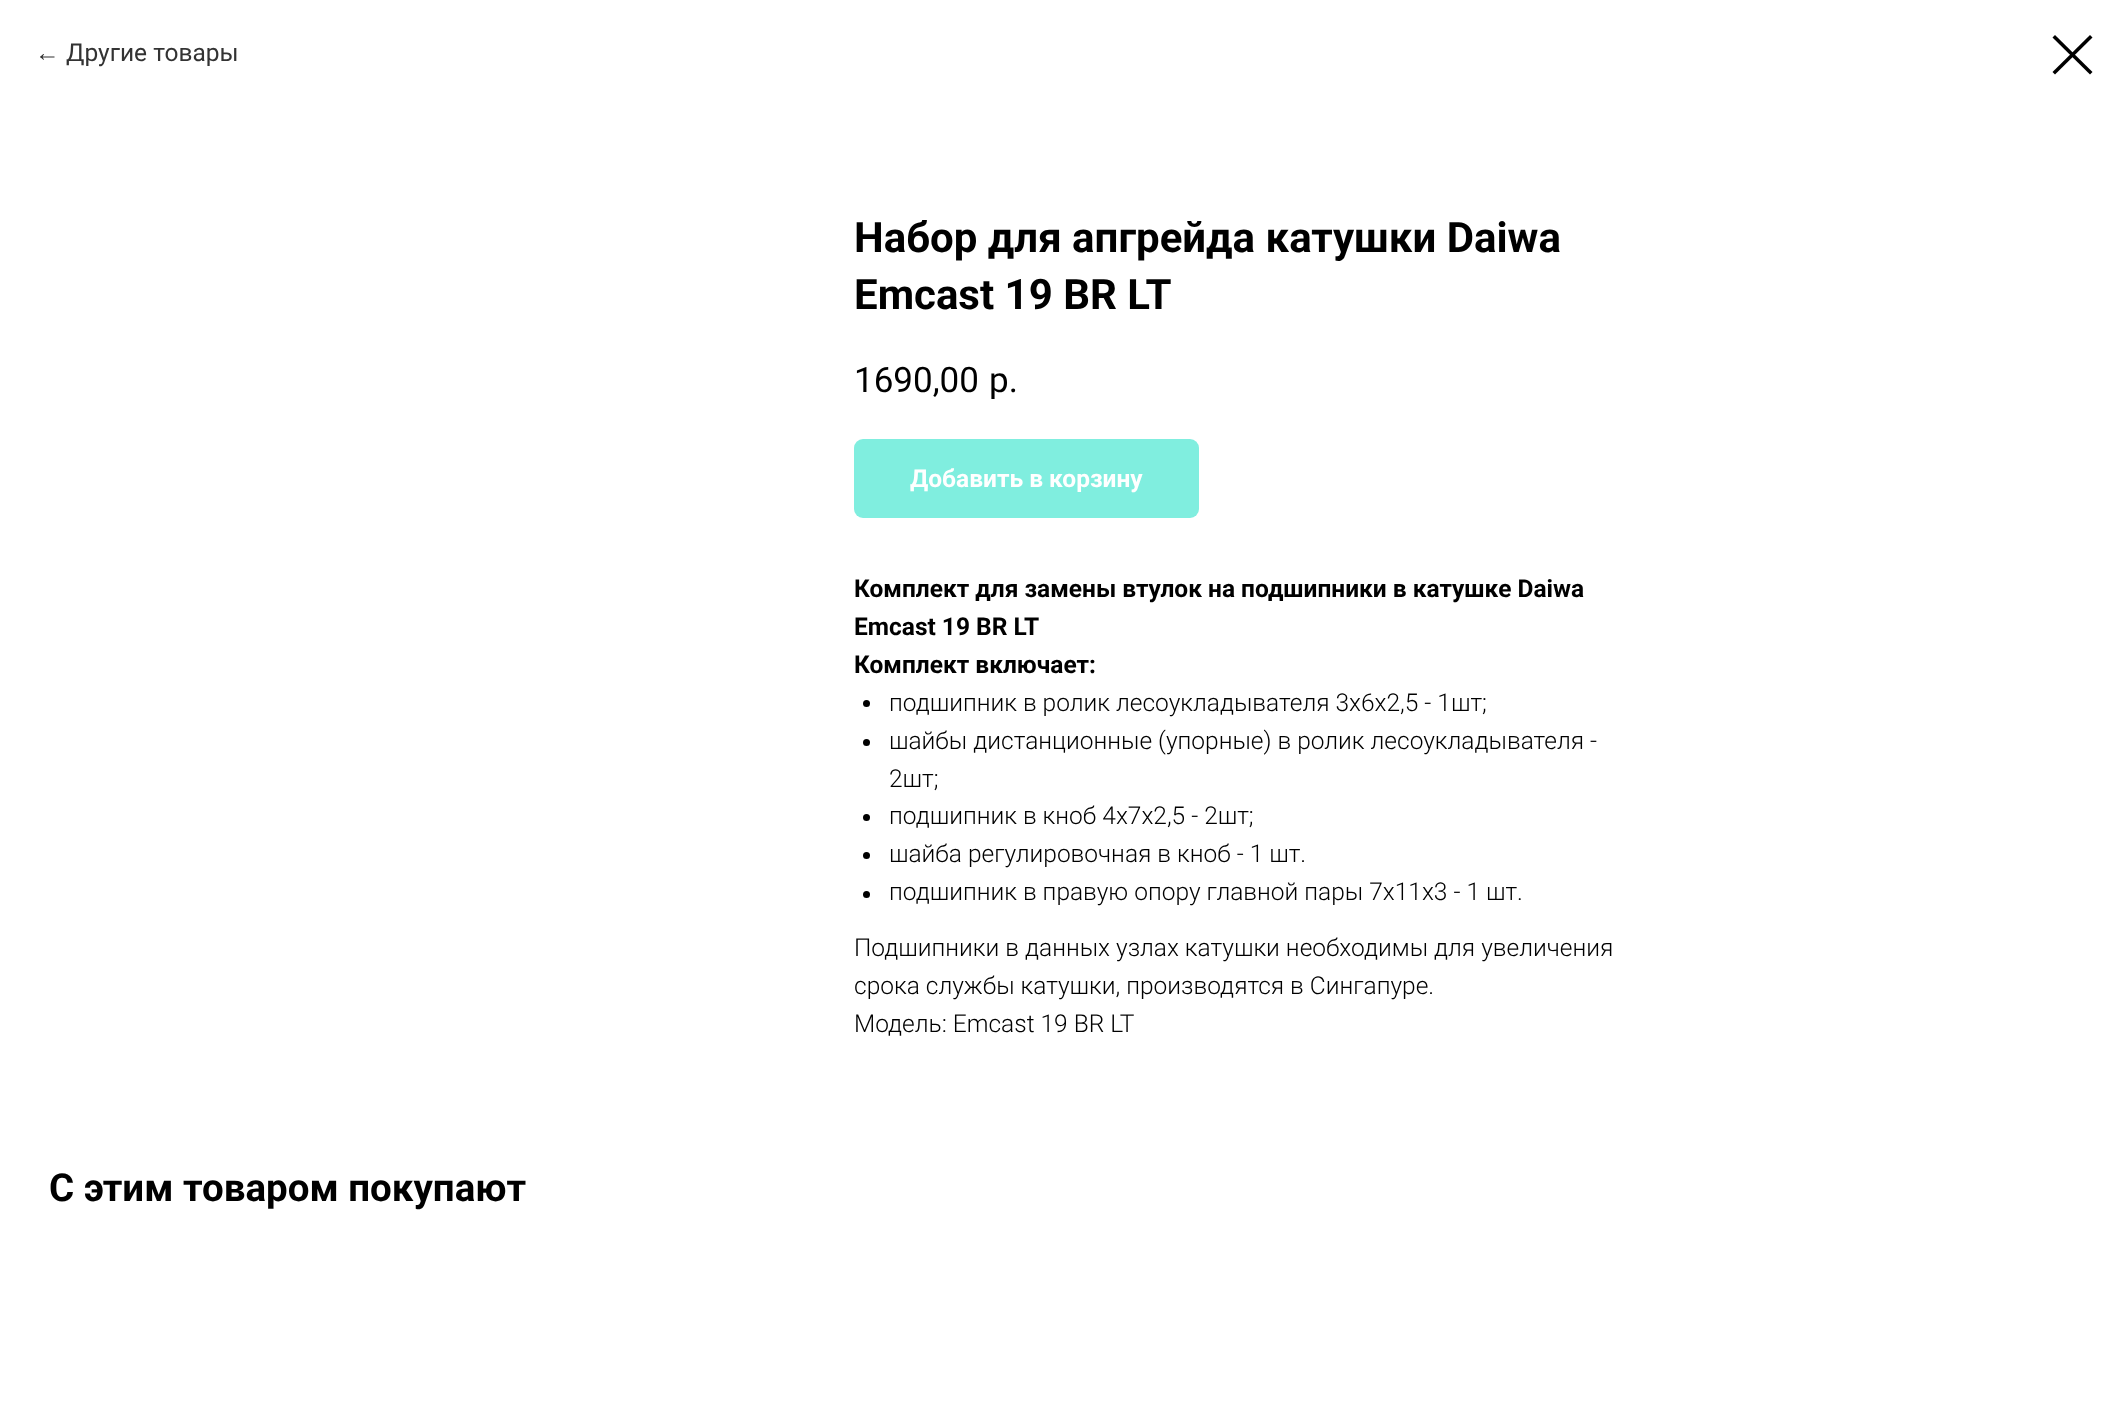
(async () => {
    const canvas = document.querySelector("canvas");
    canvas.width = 2128;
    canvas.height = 1415;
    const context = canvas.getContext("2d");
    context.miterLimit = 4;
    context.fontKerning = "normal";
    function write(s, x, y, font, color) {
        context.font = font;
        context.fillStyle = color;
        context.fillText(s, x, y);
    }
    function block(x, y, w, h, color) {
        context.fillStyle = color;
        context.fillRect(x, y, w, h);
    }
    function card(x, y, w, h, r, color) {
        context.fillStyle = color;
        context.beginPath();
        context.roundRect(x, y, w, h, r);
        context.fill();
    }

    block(0, 0, 2128, 1415, "rgb(255, 255, 255)");
    write("←", 35, 61, "24.5px Liberation Sans", "rgb(51, 51, 51)");
    write("Другие товары", 66, 61, "24.5px Roboto", "rgb(51, 51, 51)");
    context.fillStyle = "rgb(0, 0, 0)";
    context.beginPath();
    context.moveTo(2052.5, 37.5);
    context.lineTo(2055, 35);
    context.lineTo(2092.5, 72);
    context.lineTo(2090, 74.5);
    context.closePath();
    context.fill("evenodd");
    context.beginPath();
    context.moveTo(2090, 35);
    context.lineTo(2092.5, 37.5);
    context.lineTo(2055, 74.5);
    context.lineTo(2052.5, 72);
    context.closePath();
    context.fill("evenodd");
    write("Набор для апгрейда катушки Daiwa", 854, 252, "bold 42px Roboto", "rgb(0, 0, 0)");
    write("Emcast 19 BR LT", 854, 309, "bold 42px Roboto", "rgb(0, 0, 0)");
    write("1690,00", 854, 392, "35px Roboto", "rgb(0, 0, 0)");
    write("р.", 989, 392, "35px Roboto", "rgb(0, 0, 0)");
    card(854, 439, 345, 79, 9, "rgb(128, 238, 223)");
    write("Добавить в корзину", 910, 487, "bold 24.5px Roboto", "rgb(255, 255, 255)");
    write("Комплект для замены втулок на подшипники в катушке Daiwa", 854, 597, "bold 24.5px Roboto", "rgb(0, 0, 0)");
    write("Emcast 19 BR LT", 854, 635, "bold 24.5px Roboto", "rgb(0, 0, 0)");
    write("Комплект включает:", 854, 673, "bold 24.5px Roboto", "rgb(0, 0, 0)");
    context.beginPath();
    context.arc(866.5, 703.5, 3.5, 0, Math.PI * 2);
    context.fill();
    write("подшипник в ролик лесоукладывателя 3х6х2,5 - 1шт;", 889, 711, "300 24.5px Roboto", "rgb(0, 0, 0)");
    context.beginPath();
    context.arc(866.5, 742.5, 3.5, 0, Math.PI * 2);
    context.fill();
    write("шайбы дистанционные (упорные) в ролик лесоукладывателя -", 889, 749, "300 24.5px Roboto", "rgb(0, 0, 0)");
    write("2шт;", 889, 787, "300 24.5px Roboto", "rgb(0, 0, 0)");
    context.beginPath();
    context.arc(866.5, 817.5, 3.5, 0, Math.PI * 2);
    context.fill();
    write("подшипник в кноб 4х7х2,5 - 2шт;", 889, 824, "300 24.5px Roboto", "rgb(0, 0, 0)");
    context.beginPath();
    context.arc(866.5, 855.5, 3.5, 0, Math.PI * 2);
    context.fill();
    write("шайба регулировочная в кноб - 1 шт.", 889, 862, "300 24.5px Roboto", "rgb(0, 0, 0)");
    context.beginPath();
    context.arc(866.5, 894.5, 3.5, 0, Math.PI * 2);
    context.fill();
    write("подшипник в правую опору главной пары 7х11х3 - 1 шт.", 889, 900, "300 24.5px Roboto", "rgb(0, 0, 0)");
    write("Подшипники в данных узлах катушки необходимы для увеличения", 854, 956, "300 24.5px Roboto", "rgb(0, 0, 0)");
    write("срока службы катушки, производятся в Сингапуре.", 854, 994, "300 24.5px Roboto", "rgb(0, 0, 0)");
    write("Модель: Emcast 19 BR LT", 854, 1032, "300 24.5px Roboto", "rgb(0, 0, 0)");
    write("С этим товаром покупают", 49, 1201, "bold 38.5px Roboto", "rgb(0, 0, 0)");
})();
